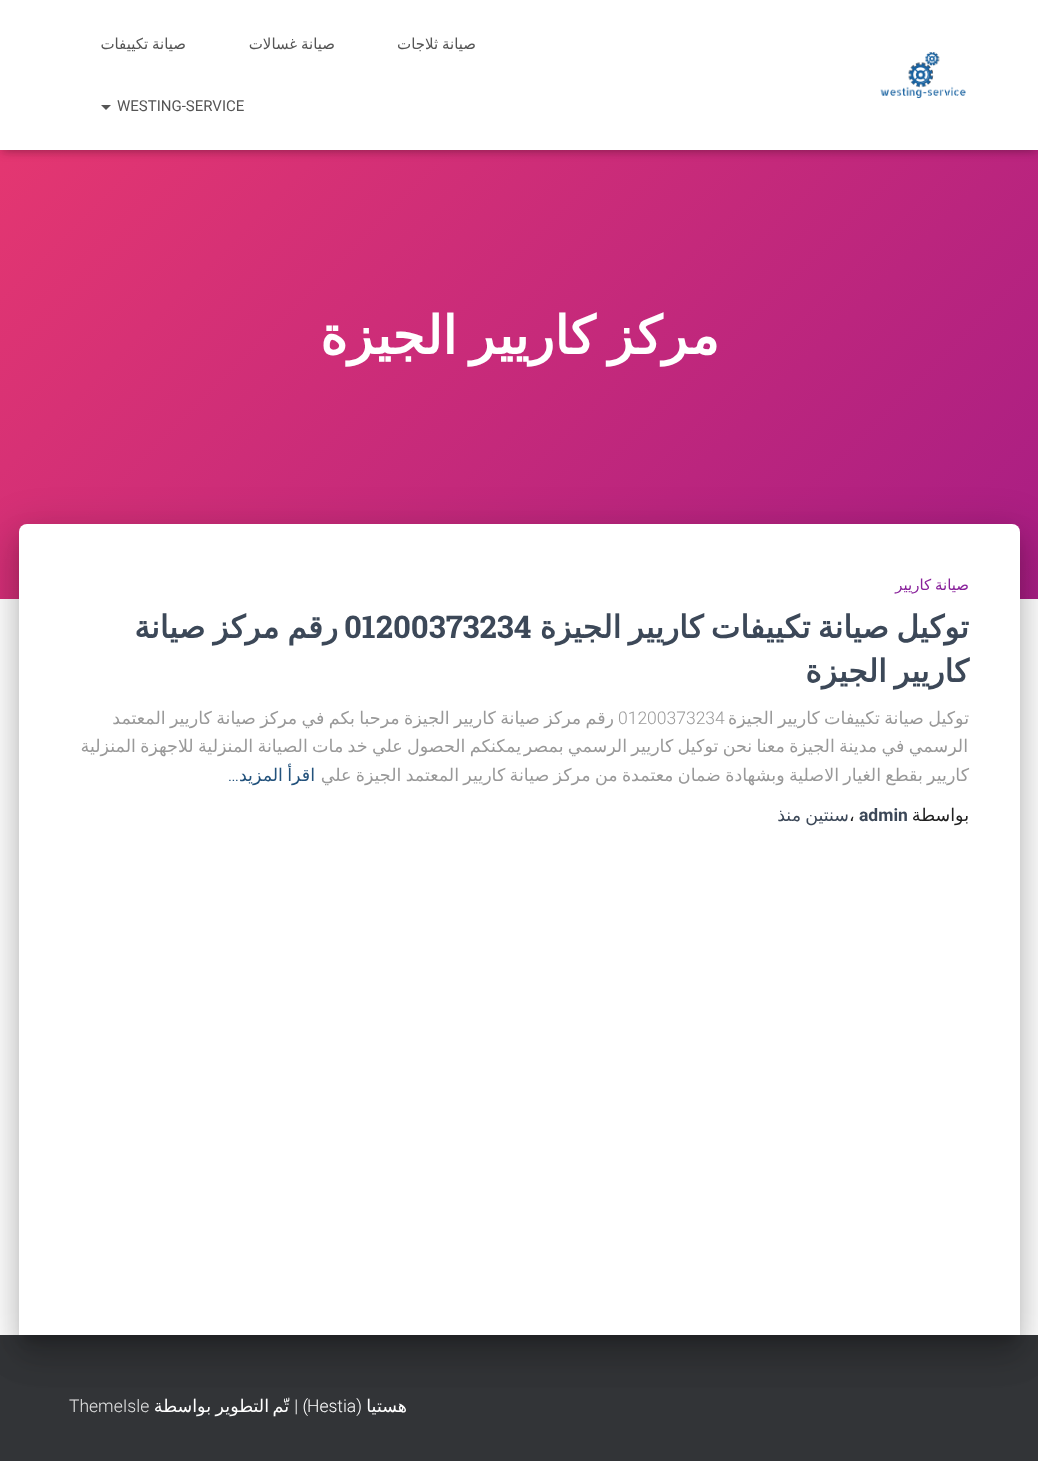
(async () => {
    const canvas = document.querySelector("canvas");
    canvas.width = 1038;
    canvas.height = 1461;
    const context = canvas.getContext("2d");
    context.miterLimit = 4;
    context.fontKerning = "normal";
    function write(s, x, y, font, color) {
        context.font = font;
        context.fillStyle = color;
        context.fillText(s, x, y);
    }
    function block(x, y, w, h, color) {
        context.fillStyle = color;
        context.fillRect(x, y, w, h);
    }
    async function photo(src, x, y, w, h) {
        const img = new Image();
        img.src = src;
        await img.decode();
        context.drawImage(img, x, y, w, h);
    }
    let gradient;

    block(0, 0, 1038, 1461, "rgb(255, 255, 255)");
    gradient = context.createLinearGradient(929, 709, 110, -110);
    gradient.addColorStop(0, "rgb(168, 29, 132)");
    gradient.addColorStop(1, "rgb(234, 57, 111)");
    context.fillStyle = gradient;
    context.fillRect(0, 150, 1038, 449);
    context.fillStyle = "rgba(0, 0, 0, 0.1)";
    context.filter = "blur(3px)";
    context.beginPath();
    context.rect(3, 8, 1033, 145);
    context.fill();
    context.filter = "none";
    context.fillStyle = "rgba(0, 0, 0, 0.12)";
    context.filter = "blur(6px)";
    context.beginPath();
    context.rect(0, 1, 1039, 150);
    context.fill();
    context.filter = "none";
    context.fillStyle = "rgba(0, 0, 0, 0.42)";
    context.filter = "blur(6px)";
    context.beginPath();
    context.rect(8, 9, 1023, 135);
    context.fill();
    context.filter = "none";
    block(0, 0, 1038, 150, "rgb(255, 255, 255)");
    await photo("media/1.png", 880, 52, 86, 47);
    context.wordSpacing = "-1px";
    context.direction = "rtl";
    write("صيانة ثلاجات", 476, 49, "15px DejaVu Sans", "rgb(85, 85, 85)");
    write("صيانة غسالات", 335, 49, "15px DejaVu Sans", "rgb(85, 85, 85)");
    write("صيانة تكييفات", 186, 49, "15px DejaVu Sans", "rgb(85, 85, 85)");
    context.wordSpacing = "0px";
    context.direction = "ltr";
    write("WESTING-SERVICE", 117, 111, "15px Roboto", "rgb(85, 85, 85)");
    context.beginPath();
    context.moveTo(101, 105);
    context.lineTo(111, 105);
    context.lineTo(106, 110);
    context.closePath();
    context.fill();
    context.wordSpacing = "-4px";
    context.direction = "rtl";
    write("مركز كاريير الجيزة", 719, 354, "bold 52.5px DejaVu Sans", "rgb(255, 255, 255)");
    block(0, 1335, 1038, 126, "rgb(50, 52, 55)");
    context.fillStyle = "rgba(0, 0, 0, 0.2)";
    context.filter = "blur(6px)";
    context.beginPath();
    context.roundRect(25, 540, 989, 799, 1);
    context.fill();
    context.filter = "none";
    context.fillStyle = "rgba(0, 0, 0, 0.12)";
    context.filter = "blur(19px)";
    context.beginPath();
    context.roundRect(13, 525, 1013, 824, 14);
    context.fill();
    context.filter = "none";
    context.fillStyle = "rgba(0, 0, 0, 0.14)";
    context.filter = "blur(15px)";
    context.beginPath();
    context.roundRect(16, 541, 1007, 817, 10);
    context.fill();
    context.filter = "none";
    context.fillStyle = "rgb(255, 255, 255)";
    context.beginPath();
    context.roundRect(19, 524, 1001, 811, [8, 8, 0, 0]);
    context.fill();
    context.wordSpacing = "-1px";
    write("صيانة كاريير", 969, 590, "15px DejaVu Sans", "rgb(137, 34, 155)");
    context.wordSpacing = "-2.5px";
    write("توكيل صيانة تكييفات كاريير الجيزة", 969, 638, "bold 31.25px DejaVu Sans", "rgb(60, 72, 88)");
    context.wordSpacing = "0px";
    context.direction = "ltr";
    write("01200373234", 344, 638, "bold 31.25px Roboto Slab", "rgb(60, 72, 88)");
    context.wordSpacing = "-2px";
    context.direction = "rtl";
    write("رقم مركز صيانة", 338, 638, "bold 31.25px DejaVu Sans", "rgb(60, 72, 88)");
    context.wordSpacing = "-2.5px";
    write("كاريير الجيزة", 969, 682, "bold 31.25px DejaVu Sans", "rgb(60, 72, 88)");
    context.wordSpacing = "-1.25px";
    write("توكيل صيانة تكييفات كاريير الجيزة", 969, 724, "17.5px DejaVu Sans", "rgb(153, 153, 153)");
    write("رقم مركز صيانة كاريير الجيزة مرحبا بكم في مركز صيانة كاريير المعتمد", 614, 724, "17.5px DejaVu Sans", "rgb(153, 153, 153)");
    context.wordSpacing = "0px";
    context.direction = "ltr";
    write("01200373234", 618, 724, "300 17.5px Roboto", "rgb(153, 153, 153)");
    context.wordSpacing = "-1.25px";
    context.direction = "rtl";
    write("يمكنكم الحصول علي خد مات الصيانة المنزلية للاجهزة المنزلية", 521, 752, "17.5px DejaVu Sans", "rgb(153, 153, 153)");
    write("الرسمي في مدينة الجيزة معنا نحن توكيل كاريير الرسمي بمصر", 968, 752, "17.5px DejaVu Sans", "rgb(153, 153, 153)");
    write("كاريير بقطع الغيار الاصلية وبشهادة ضمان معتمدة من مركز صيانة كاريير المعتمد الجيزة علي", 969, 781, "17.5px DejaVu Sans", "rgb(153, 153, 153)");
    write("اقرأ المزيد", 315, 781, "17.5px DejaVu Sans", "rgb(35, 82, 124)");
    context.wordSpacing = "0px";
    write("…", 239, 781, "300 17.5px Roboto", "rgb(35, 82, 124)");
    write("بواسطة", 969, 821, "17.5px DejaVu Sans", "rgb(33, 33, 33)");
    context.direction = "ltr";
    write("admin", 859, 821, "bold 17.5px Roboto", "rgb(60, 72, 88)");
    write("،", 849, 821, "17.5px DejaVu Sans", "rgb(33, 33, 33)");
    context.direction = "rtl";
    write("سنتين", 849, 821, "17.5px DejaVu Sans", "rgb(60, 72, 88)");
    write("منذ", 801, 821, "17.5px DejaVu Sans", "rgb(60, 72, 88)");
    write("هستيا", 407, 1412, "17.5px DejaVu Sans", "rgb(255, 255, 255)");
    write("(", 362, 1412, "300 17.5px Roboto", "rgb(255, 255, 255)");
    context.direction = "ltr";
    write("Hestia", 307, 1412, "300 17.5px Roboto", "rgb(255, 255, 255)");
    context.direction = "rtl";
    write(") |", 308, 1412, "300 17.5px Roboto", "rgb(255, 255, 255)");
    write("تّم", 289, 1412, "17.5px DejaVu Sans", "rgb(255, 255, 255)");
    write("التطوير", 269, 1412, "17.5px DejaVu Sans", "rgb(255, 255, 255)");
    write("بواسطة", 211, 1412, "17.5px DejaVu Sans", "rgb(255, 255, 255)");
    context.direction = "ltr";
    write("ThemeIsle", 69, 1412, "300 17.5px Roboto", "rgb(226, 227, 227)");
})();
